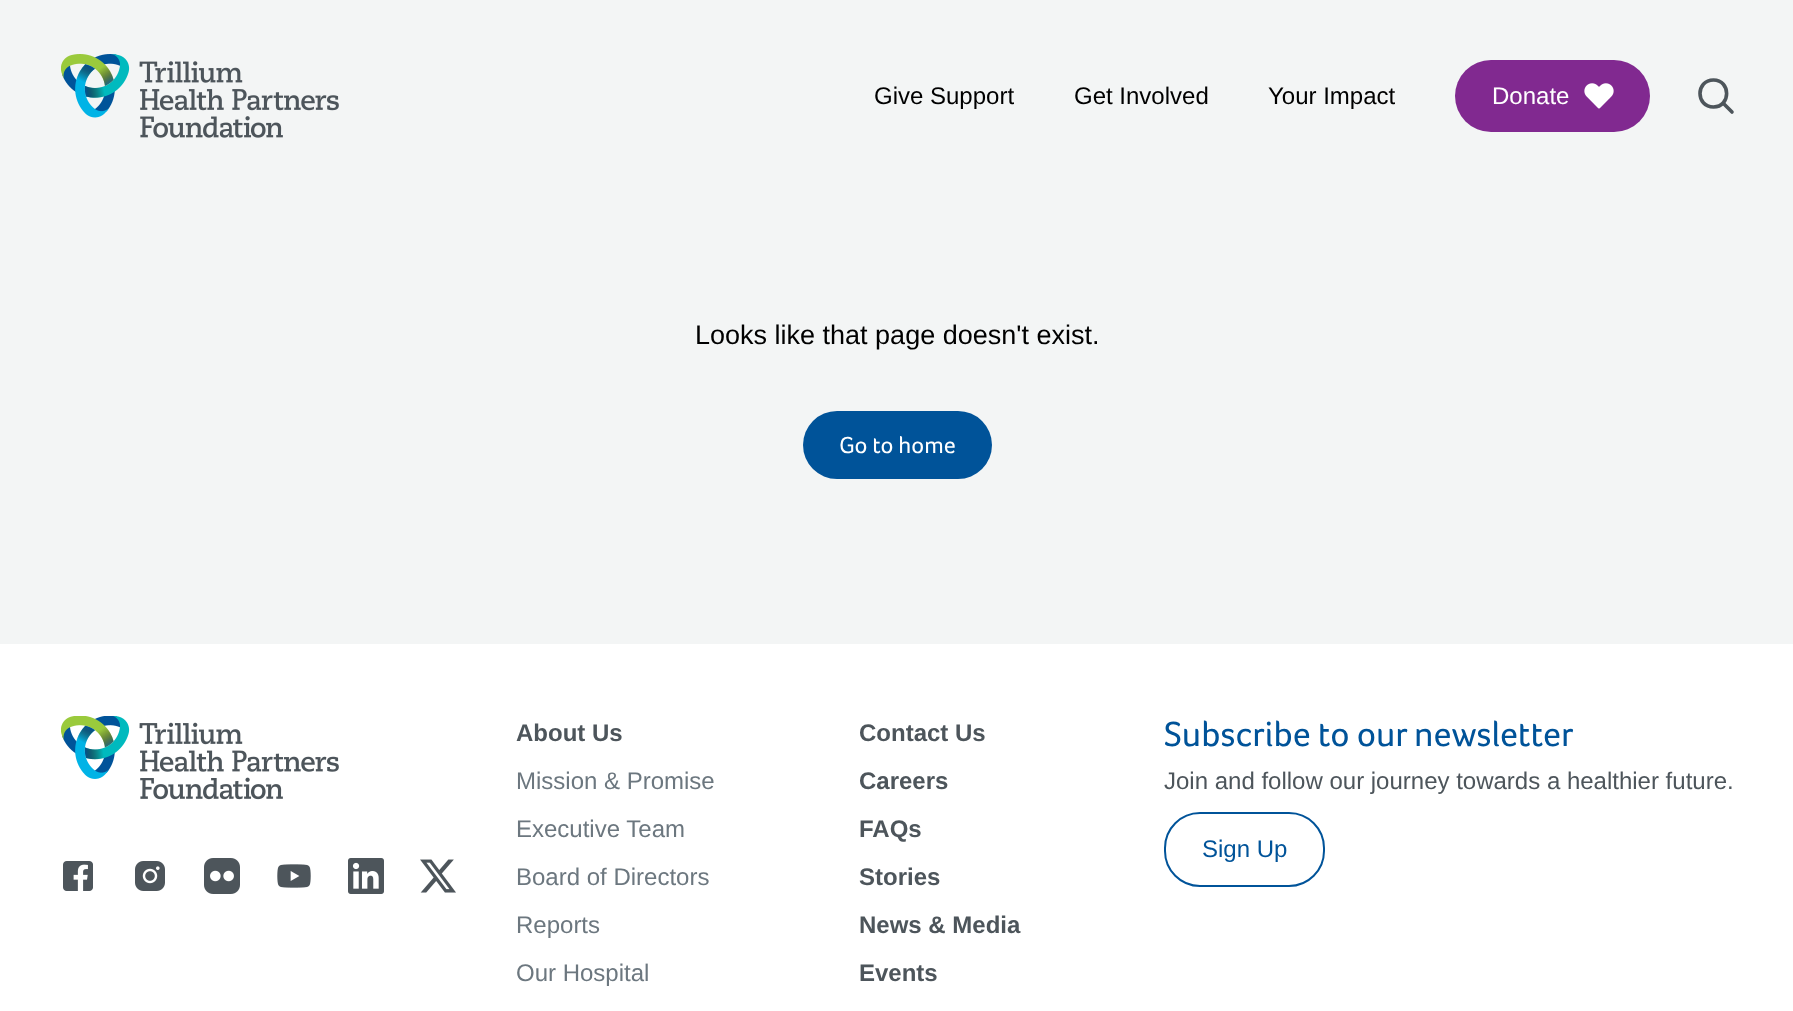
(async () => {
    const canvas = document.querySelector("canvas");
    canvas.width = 1793;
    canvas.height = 1011;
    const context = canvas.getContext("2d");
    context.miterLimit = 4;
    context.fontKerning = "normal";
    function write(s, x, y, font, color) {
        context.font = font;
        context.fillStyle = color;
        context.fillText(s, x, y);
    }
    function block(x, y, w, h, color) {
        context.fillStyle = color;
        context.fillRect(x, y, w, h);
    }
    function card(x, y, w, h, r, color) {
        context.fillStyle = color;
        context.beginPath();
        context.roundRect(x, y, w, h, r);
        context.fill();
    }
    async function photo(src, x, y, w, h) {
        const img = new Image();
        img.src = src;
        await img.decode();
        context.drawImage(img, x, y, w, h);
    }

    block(0, 0, 1793, 1011, "rgb(243, 245, 245)");
    await photo("media/1.png", 61, 54, 278, 84);
    write("Give Support", 874, 104, "24px Liberation Sans", "rgb(0, 0, 0)");
    write("Get Involved", 1074, 104, "24px Liberation Sans", "rgb(0, 0, 0)");
    write("Your Impact", 1268, 104, "24px Liberation Sans", "rgb(0, 0, 0)");
    card(1455, 60, 195, 72, 36, "rgb(129, 41, 144)");
    write("Donate", 1492, 104, "24px Liberation Sans", "rgb(255, 255, 255)");
    await photo("media/2.png", 1584, 83, 30, 26);
    context.beginPath();
    context.arc(1607, 96, 3, 0, Math.PI * 2);
    context.fill();
    context.beginPath();
    context.moveTo(1713.5, 107);
    context.bezierCurveTo(1731, 107, 1731, 80, 1713.5, 80);
    context.bezierCurveTo(1695.5, 80, 1695.5, 107, 1713.5, 107);
    context.closePath();
    context.moveTo(1723, 103);
    context.lineTo(1732, 112);
    context.strokeStyle = "rgb(77, 85, 91)";
    context.lineWidth = 3.6;
    context.lineCap = "round";
    context.lineJoin = "round";
    context.stroke();
    write("Looks like that page doesn't exist.", 695, 344, "27px Liberation Sans", "rgb(0, 0, 0)");
    card(803, 411, 189, 68, 34, "rgb(0, 83, 153)");
    write("Go to home", 839, 453, "24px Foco", "rgb(255, 255, 255)");
    block(0, 644, 1793, 367, "rgb(255, 255, 255)");
    await photo("media/3.png", 61, 716, 278, 84);
    await photo("media/4.png", 63, 861, 30, 30);
    await photo("media/5.png", 135, 861, 30, 30);
    await photo("media/6.png", 204, 858, 36, 36);
    await photo("media/7.png", 277, 864, 34, 24);
    await photo("media/8.png", 348, 858, 36, 36);
    await photo("media/9.png", 420, 859, 36, 34);
    write("About Us", 516, 741, "bold 24px Liberation Sans", "rgb(77, 85, 91)");
    write("Mission & Promise", 516, 789, "24px Liberation Sans", "rgb(108, 119, 127)");
    write("Executive Team", 516, 837, "24px Liberation Sans", "rgb(108, 119, 127)");
    write("Board of Directors", 516, 885, "24px Liberation Sans", "rgb(108, 119, 127)");
    write("Reports", 516, 933, "24px Liberation Sans", "rgb(108, 119, 127)");
    write("Our Hospital", 516, 981, "24px Liberation Sans", "rgb(108, 119, 127)");
    write("Contact Us", 859, 741, "bold 24px Liberation Sans", "rgb(77, 85, 91)");
    write("Careers", 859, 789, "bold 24px Liberation Sans", "rgb(77, 85, 91)");
    write("FAQs", 859, 837, "bold 24px Liberation Sans", "rgb(77, 85, 91)");
    write("Stories", 859, 885, "bold 24px Liberation Sans", "rgb(77, 85, 91)");
    write("News & Media", 859, 933, "bold 24px Liberation Sans", "rgb(77, 85, 91)");
    write("Events", 859, 981, "bold 24px Liberation Sans", "rgb(77, 85, 91)");
    write("Subscribe to our newsletter", 1164, 746, "36px Foco", "rgb(0, 83, 153)");
    write("Join and follow our journey towards a healthier future.", 1164, 789, "24px Liberation Sans", "rgb(77, 85, 91)");
    context.beginPath();
    context.roundRect(1165, 813, 159, 73, 35);
    context.strokeStyle = "rgb(0, 83, 153)";
    context.lineWidth = 2;
    context.lineJoin = "miter";
    context.stroke();
    write("Sign Up", 1202, 857, "24px Liberation Sans", "rgb(0, 83, 153)");
})();
